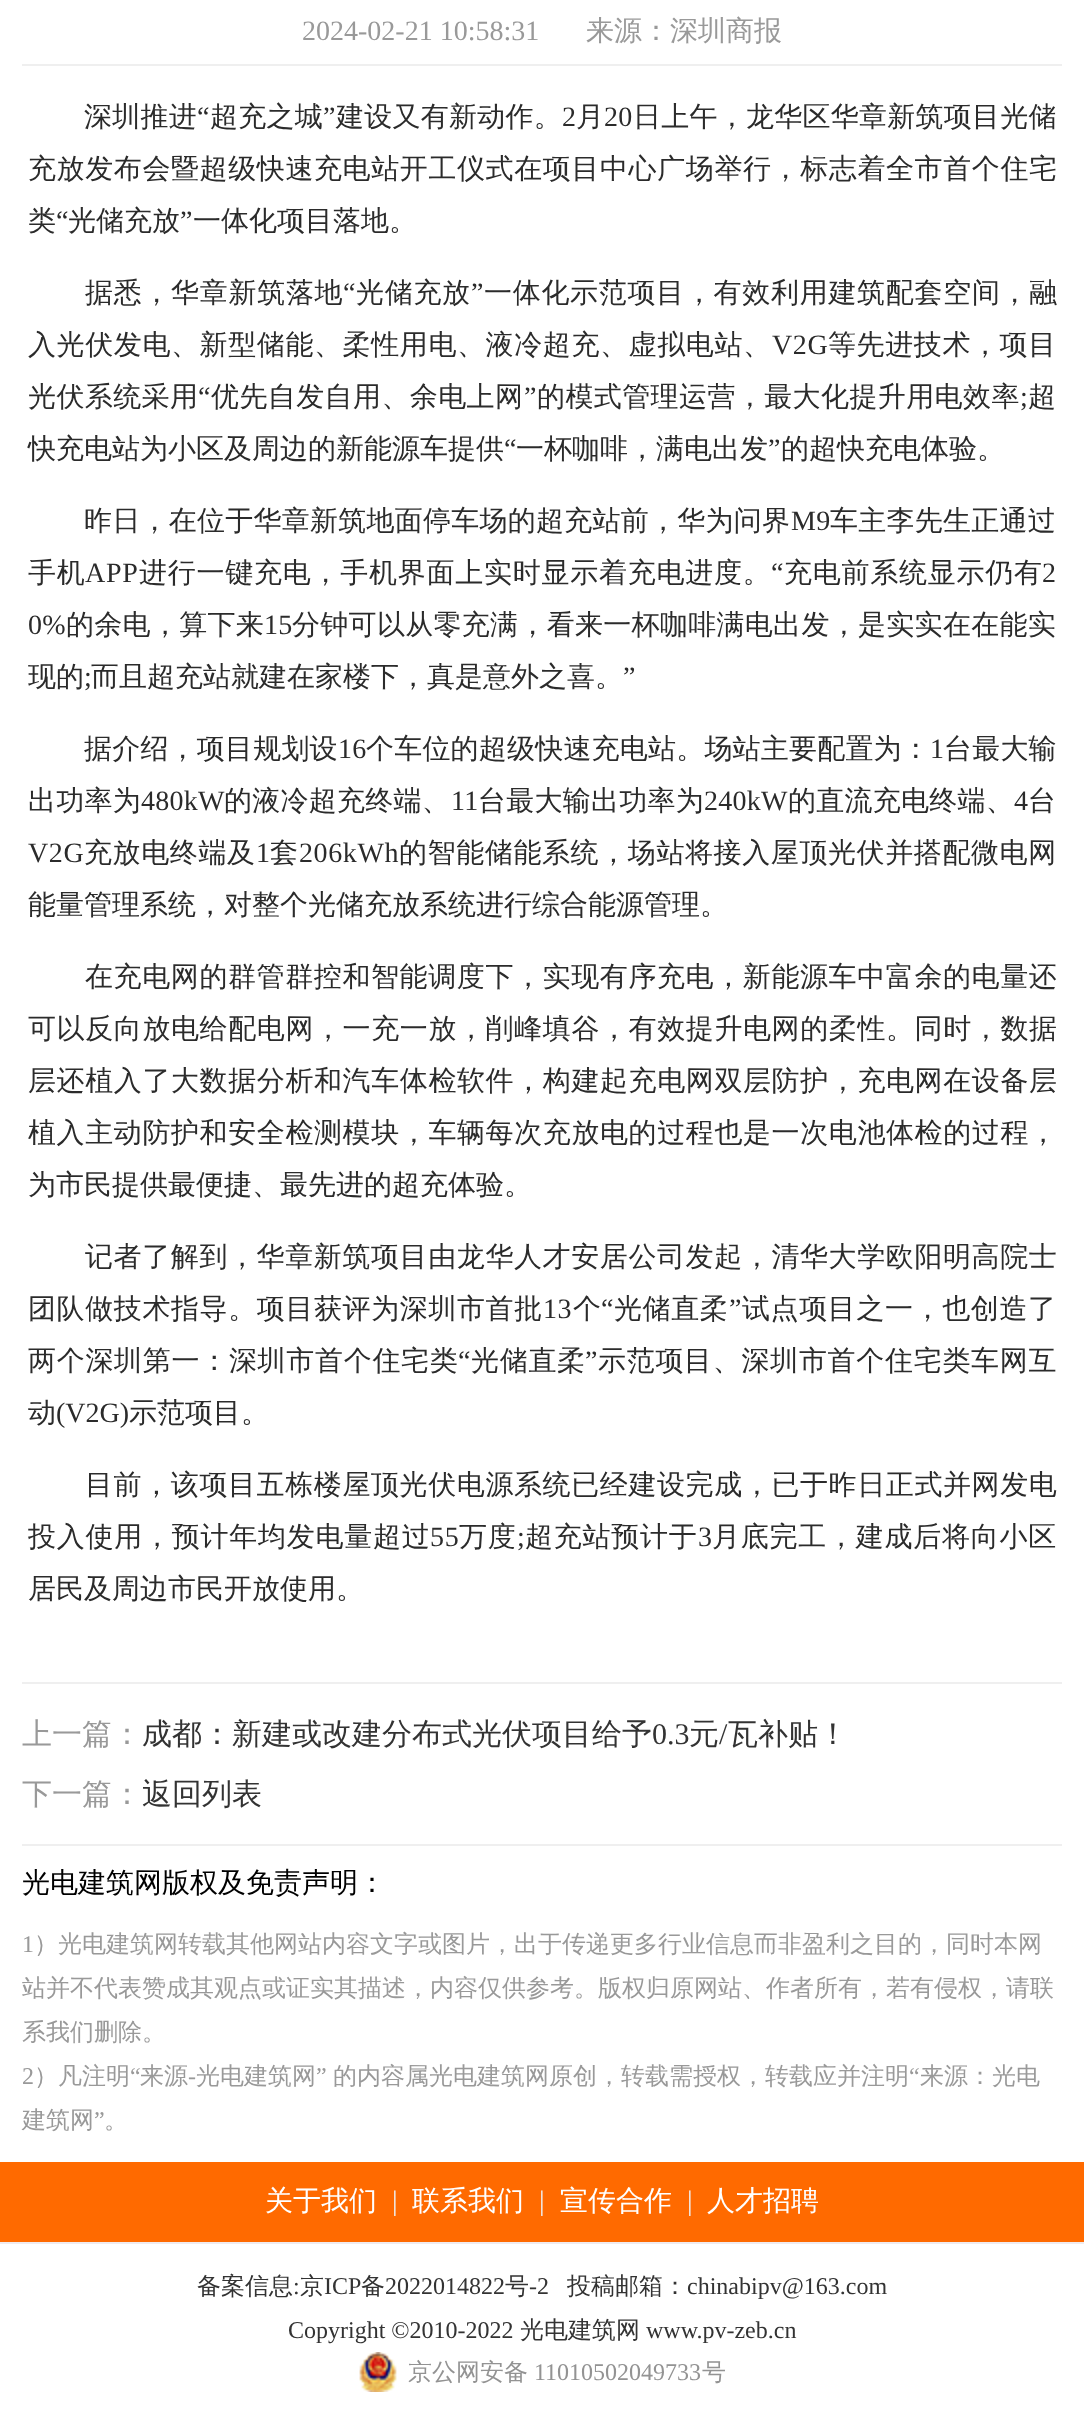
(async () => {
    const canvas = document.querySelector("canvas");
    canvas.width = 1084;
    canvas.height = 2420;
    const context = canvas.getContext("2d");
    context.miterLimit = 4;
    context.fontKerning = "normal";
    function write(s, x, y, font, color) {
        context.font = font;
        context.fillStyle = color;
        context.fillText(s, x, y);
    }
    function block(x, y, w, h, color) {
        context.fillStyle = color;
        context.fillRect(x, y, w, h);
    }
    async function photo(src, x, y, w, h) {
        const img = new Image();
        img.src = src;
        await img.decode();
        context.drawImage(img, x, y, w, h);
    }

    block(0, 0, 1084, 2420, "rgb(255, 255, 255)");
    block(22, 64, 1040, 2, "rgb(239, 239, 239)");
    write("2024-02-21 10:58:31", 302, 40, "28px Liberation Serif", "rgb(153, 153, 153)");
    write("来源：深圳商报", 586, 40, "500 28px WenQuanYi Zen Hei", "rgb(153, 153, 153)");
    context.letterSpacing = "0.25px";
    write("深圳推进", 84, 126, "500 28px WenQuanYi Zen Hei", "rgb(43, 43, 43)");
    write("“", 197, 126, "28px Liberation Serif", "rgb(43, 43, 43)");
    write("超充之城", 210, 126, "500 28px WenQuanYi Zen Hei", "rgb(43, 43, 43)");
    write("”", 323, 126, "28px Liberation Serif", "rgb(43, 43, 43)");
    write("建设又有新动作。", 336, 126, "500 28px WenQuanYi Zen Hei", "rgb(43, 43, 43)");
    write("2", 562, 126, "28px Liberation Serif", "rgb(43, 43, 43)");
    write("月", 576, 126, "500 28px WenQuanYi Zen Hei", "rgb(43, 43, 43)");
    write("20", 604, 126, "28px Liberation Serif", "rgb(43, 43, 43)");
    write("日上午，龙华区华章新筑项目光储", 633, 126, "500 28px WenQuanYi Zen Hei", "rgb(43, 43, 43)");
    context.letterSpacing = "0.6px";
    write("充放发布会暨超级快速充电站开工仪式在项目中心广场举行，标志着全市首个住宅", 28, 178, "500 28px WenQuanYi Zen Hei", "rgb(43, 43, 43)");
    context.letterSpacing = "0px";
    write("类", 28, 230, "500 28px WenQuanYi Zen Hei", "rgb(43, 43, 43)");
    write("“", 56, 230, "28px Liberation Serif", "rgb(43, 43, 43)");
    write("光储充放", 68, 230, "500 28px WenQuanYi Zen Hei", "rgb(43, 43, 43)");
    write("”", 180, 230, "28px Liberation Serif", "rgb(43, 43, 43)");
    write("一体化项目落地。", 193, 230, "500 28px WenQuanYi Zen Hei", "rgb(43, 43, 43)");
    context.letterSpacing = "0.7px";
    write("据悉，华章新筑落地", 85, 302, "500 28px WenQuanYi Zen Hei", "rgb(43, 43, 43)");
    write("“", 343, 302, "28px Liberation Serif", "rgb(43, 43, 43)");
    write("光储充放", 356, 302, "500 28px WenQuanYi Zen Hei", "rgb(43, 43, 43)");
    write("”", 471, 302, "28px Liberation Serif", "rgb(43, 43, 43)");
    write("一体化示范项目，有效利用建筑配套空间，融", 484, 302, "500 28px WenQuanYi Zen Hei", "rgb(43, 43, 43)");
    context.letterSpacing = "0.6px";
    write("入光伏发电、新型储能、柔性用电、液冷超充、虚拟电站、", 28, 354, "500 28px WenQuanYi Zen Hei", "rgb(43, 43, 43)");
    write("V2G", 772, 354, "28px Liberation Serif", "rgb(43, 43, 43)");
    write("等先进技术，项目", 828, 354, "500 28px WenQuanYi Zen Hei", "rgb(43, 43, 43)");
    context.letterSpacing = "0.4px";
    write("光伏系统采用", 28, 406, "500 28px WenQuanYi Zen Hei", "rgb(43, 43, 43)");
    write("“", 198, 406, "28px Liberation Serif", "rgb(43, 43, 43)");
    write("优先自发自用、余电上网", 211, 406, "500 28px WenQuanYi Zen Hei", "rgb(43, 43, 43)");
    write("”", 524, 406, "28px Liberation Serif", "rgb(43, 43, 43)");
    write("的模式管理运营，最大化提升用电效率", 537, 406, "500 28px WenQuanYi Zen Hei", "rgb(43, 43, 43)");
    write("超", 1028, 406, "500 28px WenQuanYi Zen Hei", "rgb(43, 43, 43)");
    write(";", 1020, 406, "28px Liberation Serif", "rgb(43, 43, 43)");
    context.letterSpacing = "0px";
    write("快充电站为小区及周边的新能源车提供", 28, 458, "500 28px WenQuanYi Zen Hei", "rgb(43, 43, 43)");
    write("“", 504, 458, "28px Liberation Serif", "rgb(43, 43, 43)");
    write("一杯咖啡，满电出发", 516, 458, "500 28px WenQuanYi Zen Hei", "rgb(43, 43, 43)");
    write("”", 768, 458, "28px Liberation Serif", "rgb(43, 43, 43)");
    write("的超快充电体验。", 781, 458, "500 28px WenQuanYi Zen Hei", "rgb(43, 43, 43)");
    context.letterSpacing = "0.25px";
    write("昨日，在位于华章新筑地面停车场的超充站前，华为问界", 84, 530, "500 28px WenQuanYi Zen Hei", "rgb(43, 43, 43)");
    write("M9", 791, 530, "28px Liberation Serif", "rgb(43, 43, 43)");
    write("车主李先生正通过", 830, 530, "500 28px WenQuanYi Zen Hei", "rgb(43, 43, 43)");
    context.letterSpacing = "0.75px";
    write("手机", 28, 582, "500 28px WenQuanYi Zen Hei", "rgb(43, 43, 43)");
    write("APP", 85, 582, "28px Liberation Serif", "rgb(43, 43, 43)");
    write("进行一键充电，手机界面上实时显示着充电进度。", 139, 582, "500 28px WenQuanYi Zen Hei", "rgb(43, 43, 43)");
    write("“", 771, 582, "28px Liberation Serif", "rgb(43, 43, 43)");
    write("充电前系统显示仍有", 784, 582, "500 28px WenQuanYi Zen Hei", "rgb(43, 43, 43)");
    write("2", 1042, 582, "28px Liberation Serif", "rgb(43, 43, 43)");
    context.letterSpacing = "0.3px";
    write("0%", 28, 634, "28px Liberation Serif", "rgb(43, 43, 43)");
    write("的余电，算下来", 66, 634, "500 28px WenQuanYi Zen Hei", "rgb(43, 43, 43)");
    write("15", 264, 634, "28px Liberation Serif", "rgb(43, 43, 43)");
    write("分钟可以从零充满，看来一杯咖啡满电出发，是实实在在能实", 292, 634, "500 28px WenQuanYi Zen Hei", "rgb(43, 43, 43)");
    context.letterSpacing = "0px";
    write("现的", 28, 686, "500 28px WenQuanYi Zen Hei", "rgb(43, 43, 43)");
    write("而且超充站就建在家楼下，真是意外之喜。", 91, 686, "500 28px WenQuanYi Zen Hei", "rgb(43, 43, 43)");
    write("”", 623, 686, "28px Liberation Serif", "rgb(43, 43, 43)");
    write(";", 84, 686, "28px Liberation Serif", "rgb(43, 43, 43)");
    context.letterSpacing = "0.2px";
    write("据介绍，项目规划设", 84, 758, "500 28px WenQuanYi Zen Hei", "rgb(43, 43, 43)");
    write("16", 338, 758, "28px Liberation Serif", "rgb(43, 43, 43)");
    write("个车位的超级快速充电站。场站主要配置为：", 366, 758, "500 28px WenQuanYi Zen Hei", "rgb(43, 43, 43)");
    write("1", 930, 758, "28px Liberation Serif", "rgb(43, 43, 43)");
    write("台最大输", 944, 758, "500 28px WenQuanYi Zen Hei", "rgb(43, 43, 43)");
    context.letterSpacing = "0.25px";
    write("出功率为", 28, 810, "500 28px WenQuanYi Zen Hei", "rgb(43, 43, 43)");
    write("480kW", 141, 810, "28px Liberation Serif", "rgb(43, 43, 43)");
    write("的液冷超充终端、", 224, 810, "500 28px WenQuanYi Zen Hei", "rgb(43, 43, 43)");
    write("11", 451, 810, "28px Liberation Serif", "rgb(43, 43, 43)");
    write("台最大输出功率为", 478, 810, "500 28px WenQuanYi Zen Hei", "rgb(43, 43, 43)");
    write("240kW", 704, 810, "28px Liberation Serif", "rgb(43, 43, 43)");
    write("的直流充电终端、", 788, 810, "500 28px WenQuanYi Zen Hei", "rgb(43, 43, 43)");
    write("4", 1014, 810, "28px Liberation Serif", "rgb(43, 43, 43)");
    write("台", 1028, 810, "500 28px WenQuanYi Zen Hei", "rgb(43, 43, 43)");
    context.letterSpacing = "0.6px";
    write("V2G", 28, 862, "28px Liberation Serif", "rgb(43, 43, 43)");
    write("充放电终端及", 84, 862, "500 28px WenQuanYi Zen Hei", "rgb(43, 43, 43)");
    write("1", 256, 862, "28px Liberation Serif", "rgb(43, 43, 43)");
    write("套", 270, 862, "500 28px WenQuanYi Zen Hei", "rgb(43, 43, 43)");
    write("206kWh", 299, 862, "28px Liberation Serif", "rgb(43, 43, 43)");
    write("的智能储能系统，场站将接入屋顶光伏并搭配微电网", 399, 862, "500 28px WenQuanYi Zen Hei", "rgb(43, 43, 43)");
    context.letterSpacing = "0px";
    write("能量管理系统，对整个光储充放系统进行综合能源管理。", 28, 914, "500 28px WenQuanYi Zen Hei", "rgb(43, 43, 43)");
    context.letterSpacing = "0.6px";
    write("在充电网的群管群控和智能调度下，实现有序充电，新能源车中富余的电量还", 85, 986, "500 28px WenQuanYi Zen Hei", "rgb(43, 43, 43)");
    write("可以反向放电给配电网，一充一放，削峰填谷，有效提升电网的柔性。同时，数据", 28, 1038, "500 28px WenQuanYi Zen Hei", "rgb(43, 43, 43)");
    write("层还植入了大数据分析和汽车体检软件，构建起充电网双层防护，充电网在设备层", 28, 1090, "500 28px WenQuanYi Zen Hei", "rgb(43, 43, 43)");
    write("植入主动防护和安全检测模块，车辆每次充放电的过程也是一次电池体检的过程，", 28, 1142, "500 28px WenQuanYi Zen Hei", "rgb(43, 43, 43)");
    context.letterSpacing = "0px";
    write("为市民提供最便捷、最先进的超充体验。", 28, 1194, "500 28px WenQuanYi Zen Hei", "rgb(43, 43, 43)");
    context.letterSpacing = "0.6px";
    write("记者了解到，华章新筑项目由龙华人才安居公司发起，清华大学欧阳明高院士", 85, 1266, "500 28px WenQuanYi Zen Hei", "rgb(43, 43, 43)");
    write("团队做技术指导。项目获评为深圳市首批", 28, 1318, "500 28px WenQuanYi Zen Hei", "rgb(43, 43, 43)");
    write("13", 543, 1318, "28px Liberation Serif", "rgb(43, 43, 43)");
    write("个", 573, 1318, "500 28px WenQuanYi Zen Hei", "rgb(43, 43, 43)");
    write("“", 601, 1318, "28px Liberation Serif", "rgb(43, 43, 43)");
    write("光储直柔", 614, 1318, "500 28px WenQuanYi Zen Hei", "rgb(43, 43, 43)");
    write("”", 729, 1318, "28px Liberation Serif", "rgb(43, 43, 43)");
    write("试点项目之一，也创造了", 742, 1318, "500 28px WenQuanYi Zen Hei", "rgb(43, 43, 43)");
    context.letterSpacing = "0.7px";
    write("两个深圳第一：深圳市首个住宅类", 28, 1370, "500 28px WenQuanYi Zen Hei", "rgb(43, 43, 43)");
    write("“", 458, 1370, "28px Liberation Serif", "rgb(43, 43, 43)");
    write("光储直柔", 471, 1370, "500 28px WenQuanYi Zen Hei", "rgb(43, 43, 43)");
    write("”", 585, 1370, "28px Liberation Serif", "rgb(43, 43, 43)");
    write("示范项目、深圳市首个住宅类车网互", 598, 1370, "500 28px WenQuanYi Zen Hei", "rgb(43, 43, 43)");
    context.letterSpacing = "0px";
    write("动", 28, 1422, "500 28px WenQuanYi Zen Hei", "rgb(43, 43, 43)");
    write("(V2G)", 56, 1422, "28px Liberation Serif", "rgb(43, 43, 43)");
    write("示范项目。", 129, 1422, "500 28px WenQuanYi Zen Hei", "rgb(43, 43, 43)");
    context.letterSpacing = "0.6px";
    write("目前，该项目五栋楼屋顶光伏电源系统已经建设完成，已于昨日正式并网发电", 85, 1494, "500 28px WenQuanYi Zen Hei", "rgb(43, 43, 43)");
    context.letterSpacing = "0.75px";
    write("投入使用，预计年均发电量超过", 28, 1546, "500 28px WenQuanYi Zen Hei", "rgb(43, 43, 43)");
    write("55", 430, 1546, "28px Liberation Serif", "rgb(43, 43, 43)");
    write("万度", 459, 1546, "500 28px WenQuanYi Zen Hei", "rgb(43, 43, 43)");
    write(";", 517, 1546, "28px Liberation Serif", "rgb(43, 43, 43)");
    write("超充站预计于", 525, 1546, "500 28px WenQuanYi Zen Hei", "rgb(43, 43, 43)");
    write("3", 698, 1546, "28px Liberation Serif", "rgb(43, 43, 43)");
    write("月底完工，建成后将向小区", 712, 1546, "500 28px WenQuanYi Zen Hei", "rgb(43, 43, 43)");
    context.letterSpacing = "0px";
    write("居民及周边市民开放使用。", 28, 1598, "500 28px WenQuanYi Zen Hei", "rgb(43, 43, 43)");
    block(22, 1682, 1040, 2, "rgb(239, 239, 239)");
    write("上一篇：", 22, 1744, "500 30px WenQuanYi Zen Hei", "rgb(153, 153, 153)");
    write("成都：新建或改建分布式光伏项目给予", 142, 1744, "500 30px WenQuanYi Zen Hei", "rgb(51, 51, 51)");
    write("0.3", 652, 1744, "30px Liberation Serif", "rgb(51, 51, 51)");
    write("元", 689, 1744, "500 30px WenQuanYi Zen Hei", "rgb(51, 51, 51)");
    write("/", 719, 1744, "30px Liberation Serif", "rgb(51, 51, 51)");
    write("瓦补贴！", 728, 1744, "500 30px WenQuanYi Zen Hei", "rgb(51, 51, 51)");
    write("下一篇：", 22, 1804, "500 30px WenQuanYi Zen Hei", "rgb(153, 153, 153)");
    write("返回列表", 142, 1804, "500 30px WenQuanYi Zen Hei", "rgb(51, 51, 51)");
    block(22, 1844, 1040, 2, "rgb(239, 239, 239)");
    write("光电建筑网版权及免责声明：", 22, 1892, "500 28px WenQuanYi Zen Hei", "rgb(0, 0, 0)");
    write("1", 22, 1952, "24px Liberation Serif", "rgb(153, 153, 153)");
    write("）光电建筑网转载其他网站内容文字或图片，出于传递更多行业信息而非盈利之目的，同时本网", 34, 1952, "500 24px WenQuanYi Zen Hei", "rgb(153, 153, 153)");
    write("站并不代表赞成其观点或证实其描述，内容仅供参考。版权归原网站、作者所有，若有侵权，请联", 22, 1996, "500 24px WenQuanYi Zen Hei", "rgb(153, 153, 153)");
    write("系我们删除。", 22, 2040, "500 24px WenQuanYi Zen Hei", "rgb(153, 153, 153)");
    write("2", 22, 2084, "24px Liberation Serif", "rgb(153, 153, 153)");
    write("）凡注明", 34, 2084, "500 24px WenQuanYi Zen Hei", "rgb(153, 153, 153)");
    write("“", 130, 2084, "24px Liberation Serif", "rgb(153, 153, 153)");
    write("来源", 140, 2084, "500 24px WenQuanYi Zen Hei", "rgb(153, 153, 153)");
    write("光电建筑网", 196, 2084, "500 24px WenQuanYi Zen Hei", "rgb(153, 153, 153)");
    write("”", 316, 2084, "24px Liberation Serif", "rgb(153, 153, 153)");
    write("的内容属光电建筑网原创，转载需授权，转载应并注明", 333, 2084, "500 24px WenQuanYi Zen Hei", "rgb(153, 153, 153)");
    write("“", 909, 2084, "24px Liberation Serif", "rgb(153, 153, 153)");
    write("来源：光电", 920, 2084, "500 24px WenQuanYi Zen Hei", "rgb(153, 153, 153)");
    write("-", 188, 2084, "24px Liberation Serif", "rgb(153, 153, 153)");
    write("建筑网", 22, 2128, "500 24px WenQuanYi Zen Hei", "rgb(153, 153, 153)");
    write("”", 94, 2128, "24px Liberation Serif", "rgb(153, 153, 153)");
    write("。", 104, 2128, "500 24px WenQuanYi Zen Hei", "rgb(153, 153, 153)");
    block(0, 2162, 1084, 80, "rgb(255, 106, 0)");
    write("关于我们", 265, 2210, "500 28px WenQuanYi Zen Hei", "rgb(255, 255, 255)");
    write("|", 392, 2210, "28px Liberation Serif", "rgb(239, 239, 239)");
    write("联系我们", 412, 2210, "500 28px WenQuanYi Zen Hei", "rgb(255, 255, 255)");
    write("|", 539, 2210, "28px Liberation Serif", "rgb(239, 239, 239)");
    write("宣传合作", 560, 2210, "500 28px WenQuanYi Zen Hei", "rgb(255, 255, 255)");
    write("|", 687, 2210, "28px Liberation Serif", "rgb(239, 239, 239)");
    write("人才招聘", 707, 2210, "500 28px WenQuanYi Zen Hei", "rgb(255, 255, 255)");
    block(0, 2242, 1084, 2, "rgb(239, 235, 239)");
    write("备案信息", 197, 2294, "500 24px WenQuanYi Zen Hei", "rgb(51, 51, 51)");
    write(":", 293, 2294, "24px Liberation Serif", "rgb(51, 51, 51)");
    write("京", 300, 2294, "500 24px WenQuanYi Zen Hei", "rgb(51, 51, 51)");
    write("ICP", 324, 2294, "24px Liberation Serif", "rgb(51, 51, 51)");
    write("备", 361, 2294, "500 24px WenQuanYi Zen Hei", "rgb(51, 51, 51)");
    write("2022014822", 385, 2294, "24px Liberation Serif", "rgb(51, 51, 51)");
    write("号", 505, 2294, "500 24px WenQuanYi Zen Hei", "rgb(51, 51, 51)");
    write("-2", 529, 2294, "24px Liberation Serif", "rgb(51, 51, 51)");
    write("投稿邮箱：", 567, 2294, "500 24px WenQuanYi Zen Hei", "rgb(51, 51, 51)");
    write("chinabipv@163.com", 687, 2294, "24px Liberation Serif", "rgb(51, 51, 51)");
    write("Copyright ©2010-2022", 288, 2338, "24px Liberation Serif", "rgb(51, 51, 51)");
    write("光电建筑网", 520, 2338, "500 24px WenQuanYi Zen Hei", "rgb(51, 51, 51)");
    write("www.pv-zeb.cn", 646, 2338, "24px Liberation Serif", "rgb(51, 51, 51)");
    await photo("media/1.png", 359, 2352, 38, 40);
    write("京公网安备", 408, 2380, "500 24px WenQuanYi Zen Hei", "rgb(147, 147, 147)");
    write("11010502049733", 534, 2380, "24px Liberation Serif", "rgb(147, 147, 147)");
    write("号", 702, 2380, "500 24px WenQuanYi Zen Hei", "rgb(147, 147, 147)");
})();
